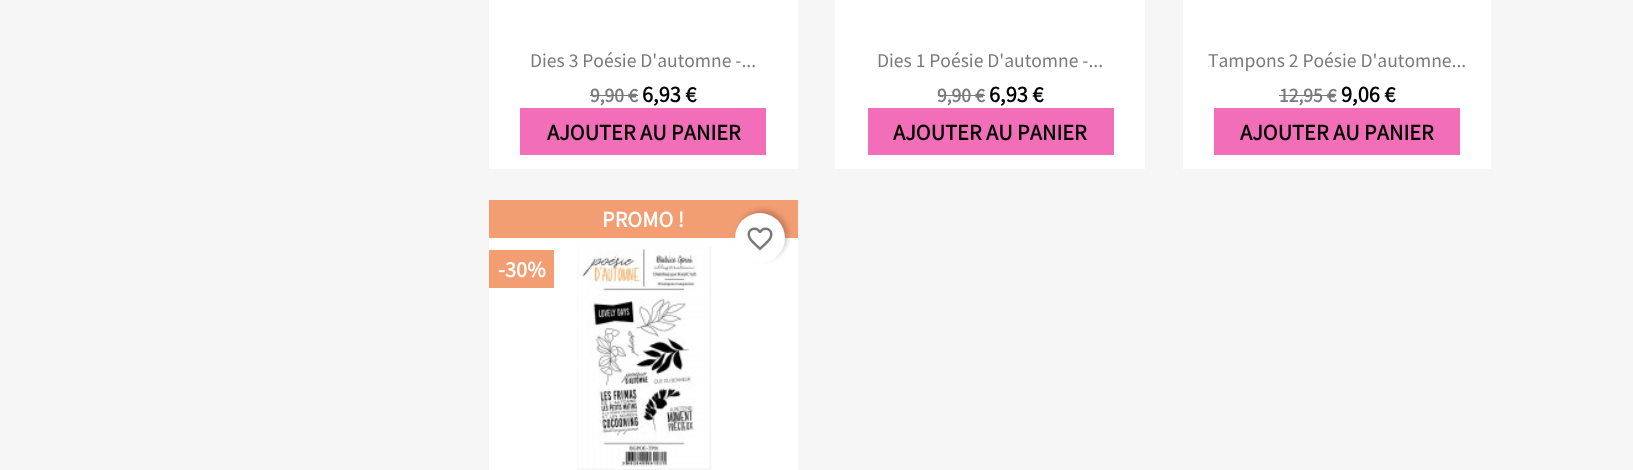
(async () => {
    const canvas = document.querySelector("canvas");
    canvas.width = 1633;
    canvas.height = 470;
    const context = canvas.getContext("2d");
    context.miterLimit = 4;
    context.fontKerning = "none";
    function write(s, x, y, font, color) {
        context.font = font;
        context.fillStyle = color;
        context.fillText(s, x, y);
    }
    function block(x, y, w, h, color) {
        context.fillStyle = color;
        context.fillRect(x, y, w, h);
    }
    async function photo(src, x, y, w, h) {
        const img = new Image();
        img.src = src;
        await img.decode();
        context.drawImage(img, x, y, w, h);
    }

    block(0, 0, 1633, 470, "rgb(246, 246, 246)");
    block(489, 0, 309, 169, "rgb(255, 255, 255)");
    write("Dies 3 Poésie D'automne -...", 530, 67, "100 17.5px Noto Sans KR", "rgb(122, 122, 122)");
    write("9,90 €", 590, 102, "bold 17.5px Noto Sans KR", "rgb(122, 122, 122)");
    block(590, 95, 48, 1, "rgb(122, 122, 122)");
    write("6,93 €", 642, 102, "bold 20px Noto Sans KR", "rgb(0, 0, 0)");
    block(520, 108, 246, 47, "rgb(243, 110, 185)");
    write("AJOUTER AU PANIER", 547, 140, "bold 20px Noto Sans KR", "rgb(0, 0, 0)");
    block(835, 0, 310, 169, "rgb(255, 255, 255)");
    write("Dies 1 Poésie D'automne -...", 877, 67, "100 17.5px Noto Sans KR", "rgb(122, 122, 122)");
    write("9,90 €", 937, 102, "bold 17.5px Noto Sans KR", "rgb(122, 122, 122)");
    block(938, 95, 47, 1, "rgb(122, 122, 122)");
    write("6,93 €", 989, 102, "bold 20px Noto Sans KR", "rgb(0, 0, 0)");
    block(868, 108, 246, 47, "rgb(243, 110, 185)");
    write("AJOUTER AU PANIER", 893, 140, "bold 20px Noto Sans KR", "rgb(0, 0, 0)");
    block(1183, 0, 308, 169, "rgb(255, 255, 255)");
    write("Tampons 2 Poésie D'automne...", 1208, 67, "100 17.5px Noto Sans KR", "rgb(122, 122, 122)");
    write("12,95 €", 1279, 102, "bold 17.5px Noto Sans KR", "rgb(122, 122, 122)");
    block(1279, 95, 57, 1, "rgb(122, 122, 122)");
    write("9,06 €", 1341, 102, "bold 20px Noto Sans KR", "rgb(0, 0, 0)");
    block(1214, 108, 246, 47, "rgb(243, 110, 185)");
    write("AJOUTER AU PANIER", 1240, 140, "bold 20px Noto Sans KR", "rgb(0, 0, 0)");
    block(489, 238, 309, 232, "rgb(255, 255, 255)");
    block(489, 200, 309, 38, "rgb(243, 157, 114)");
    write("PROMO !", 602, 227, "bold 20px Noto Sans KR", "rgb(255, 255, 255)");
    block(489, 250, 65, 38, "rgb(243, 157, 114)");
    write("-30%", 498, 277, "bold 20px Noto Sans KR", "rgb(255, 255, 255)");
    context.fillStyle = "rgba(0, 0, 0, 0.2)";
    context.filter = "blur(2.5px)";
    context.beginPath();
    context.roundRect(738, 210, 50, 50, 25);
    context.fill();
    context.filter = "none";
    context.fillStyle = "rgb(255, 255, 255)";
    context.beginPath();
    context.arc(760, 238, 25, 0, Math.PI * 2);
    context.fill();
    await photo("media/1.png", 747, 227, 26, 24);
    await photo("media/2.png", 577, 246, 135, 224);
})();
